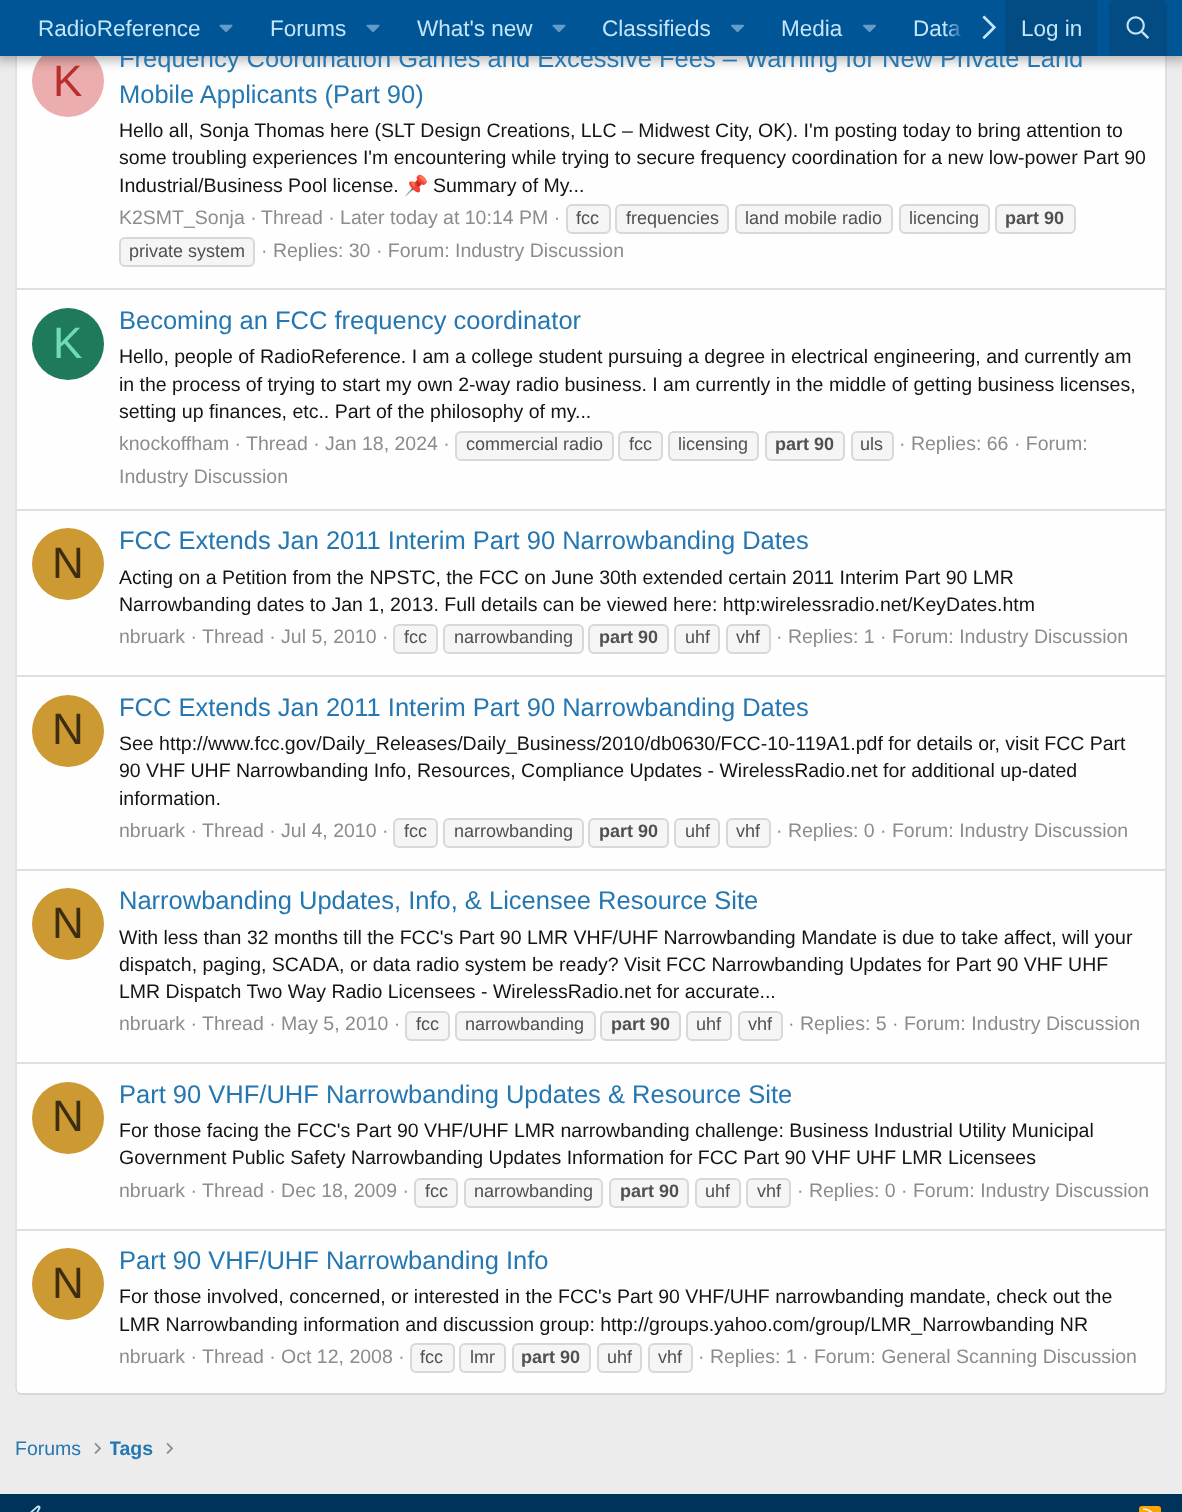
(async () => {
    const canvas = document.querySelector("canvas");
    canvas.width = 1182;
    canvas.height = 1512;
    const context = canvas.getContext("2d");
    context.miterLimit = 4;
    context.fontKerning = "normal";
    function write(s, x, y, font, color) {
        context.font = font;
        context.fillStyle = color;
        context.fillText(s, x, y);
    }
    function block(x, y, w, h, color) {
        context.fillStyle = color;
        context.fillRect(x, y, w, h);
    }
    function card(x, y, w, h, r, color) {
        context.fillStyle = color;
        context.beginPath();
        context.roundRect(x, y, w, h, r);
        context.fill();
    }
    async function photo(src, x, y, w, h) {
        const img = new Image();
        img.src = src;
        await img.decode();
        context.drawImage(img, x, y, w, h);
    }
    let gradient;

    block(0, 0, 1182, 1512, "rgb(236, 236, 236)");
    card(15, 26, 1152, 1369, 6, "rgb(254, 254, 254)");
    context.beginPath();
    context.moveTo(1164.5, 28);
    context.bezierCurveTo(1165.5, 29, 1166, 30, 1166, 31.5);
    context.lineTo(1166, 1389);
    context.bezierCurveTo(1166, 1390.5, 1165.5, 1391.5, 1164.5, 1392.5);
    context.strokeStyle = "rgb(216, 216, 216)";
    context.lineWidth = 1.5;
    context.stroke();
    context.beginPath();
    context.moveTo(1164.5, 1392.5);
    context.bezierCurveTo(1163.5, 1393.5, 1162.5, 1394, 1161, 1394);
    context.lineTo(21, 1394);
    context.bezierCurveTo(19.5, 1394, 18.5, 1393.5, 17.5, 1392.5);
    context.strokeStyle = "rgb(203, 203, 203)";
    context.stroke();
    context.beginPath();
    context.moveTo(17.5, 1392.5);
    context.bezierCurveTo(16.5, 1391.5, 16, 1390.5, 16, 1389);
    context.lineTo(16, 31.5);
    context.bezierCurveTo(16, 30, 16.5, 29, 17.5, 28);
    context.strokeStyle = "rgb(216, 216, 216)";
    context.stroke();
    context.fillStyle = "rgb(235, 173, 173)";
    context.beginPath();
    context.arc(68, 81, 36, 0, Math.PI * 2);
    context.fill();
    context.fillStyle = "rgba(0, 0, 0, 0.3)";
    context.filter = "blur(6px)";
    context.beginPath();
    context.rect(-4, -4, 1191, 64);
    context.fill();
    context.filter = "none";
    write("Frequency Coordination Games and Excessive Fees – Warning for New Private Land", 119, 67, "25.5px Liberation Sans", "rgb(37, 119, 177)");
    block(0, 0, 1182, 56, "rgb(0, 85, 151)");
    write("RadioReference", 38, 36, "22.5px Liberation Sans", "rgb(197, 229, 248)");
    await photo("media/1.png", 219, 24, 14, 9);
    write("Forums", 270, 36, "22.5px Liberation Sans", "rgb(197, 229, 248)");
    await photo("media/1.png", 366, 24, 14, 9);
    write("What's new", 417, 36, "22.5px Liberation Sans", "rgb(197, 229, 248)");
    await photo("media/1.png", 552, 24, 14, 9);
    write("Classifieds", 602, 36, "22.5px Liberation Sans", "rgb(197, 229, 248)");
    await photo("media/2.png", 731, 24, 13, 9);
    write("Media", 781, 36, "22.5px Liberation Sans", "rgb(197, 229, 248)");
    await photo("media/2.png", 863, 24, 13, 9);
    write("Data", 913, 36, "22.5px Liberation Sans", "rgb(197, 229, 248)");
    gradient = context.createLinearGradient(945, 28, 1005, 28);
    gradient.addColorStop(0, "rgba(0, 85, 151, 0)");
    gradient.addColorStop(0.33, "rgb(0, 85, 151)");
    context.fillStyle = gradient;
    context.fillRect(945, 23, 16, 14);
    await photo("media/3.png", 982, 15, 14, 24);
    block(1005, 0, 92, 56, "rgb(3, 75, 131)");
    write("Log in", 1021, 36, "22.5px Liberation Sans", "rgb(197, 229, 248)");
    context.fillStyle = "rgb(3, 75, 131)";
    context.beginPath();
    context.roundRect(1109, 0, 58, 56, [6, 6, 0, 0]);
    context.fill();
    await photo("media/4.png", 1126, 16, 23, 23);
    write("K", 53, 96, "44px Liberation Sans", "rgb(184, 46, 46)");
    write("Mobile Applicants (Part 90)", 119, 103, "25.5px Liberation Sans", "rgb(37, 119, 177)");
    write("Hello all, Sonja Thomas here (SLT Design Creations, LLC – Midwest City, OK). I'm posting today to bring attention to", 119, 137, "19.5px Liberation Sans", "rgb(20, 20, 20)");
    write("some troubling experiences I'm encountering while trying to secure frequency coordination for a new low-power Part 90", 119, 164, "19.5px Liberation Sans", "rgb(20, 20, 20)");
    write("Industrial/Business Pool license.", 119, 192, "19.5px Liberation Sans", "rgb(20, 20, 20)");
    write("📌", 404, 192, "19.5px Noto Color Emoji", "rgb(20, 20, 20)");
    write("Summary of My...", 433, 192, "19.5px Liberation Sans", "rgb(20, 20, 20)");
    write("K2SMT_Sonja ·", 119, 224, "19.5px Liberation Sans", "rgb(140, 140, 140)");
    write("Thread · Later today at 10:14 PM ·", 261, 224, "19.5px Liberation Sans", "rgb(140, 140, 140)");
    context.fillStyle = "rgb(245, 245, 245)";
    context.beginPath();
    context.roundRect(567, 205, 43, 28, 5);
    context.fill();
    context.lineWidth = 2;
    context.stroke();
    write("fcc", 576, 224, "18px Liberation Sans", "rgb(80, 80, 80)");
    context.fillStyle = "rgb(245, 245, 245)";
    context.beginPath();
    context.roundRect(616, 205, 112, 28, 5);
    context.fill();
    context.stroke();
    write("frequencies", 626, 224, "18px Liberation Sans", "rgb(80, 80, 80)");
    context.fillStyle = "rgb(245, 245, 245)";
    context.beginPath();
    context.roundRect(736, 205, 156, 28, 5);
    context.fill();
    context.stroke();
    write("land mobile radio", 745, 224, "18px Liberation Sans", "rgb(80, 80, 80)");
    context.fillStyle = "rgb(245, 245, 245)";
    context.beginPath();
    context.roundRect(900, 205, 89, 28, 5);
    context.fill();
    context.stroke();
    write("licencing", 909, 224, "18px Liberation Sans", "rgb(80, 80, 80)");
    context.fillStyle = "rgb(245, 245, 245)";
    context.beginPath();
    context.roundRect(996, 205, 79, 28, 5);
    context.fill();
    context.stroke();
    write("part 90", 1005, 224, "bold 18px Liberation Sans", "rgb(80, 80, 80)");
    context.fillStyle = "rgb(245, 245, 245)";
    context.beginPath();
    context.roundRect(120, 238, 134, 28, 5);
    context.fill();
    context.stroke();
    write("private system", 129, 257, "18px Liberation Sans", "rgb(80, 80, 80)");
    write("· Replies: 30 · Forum: Industry Discussion", 261, 257, "19.5px Liberation Sans", "rgb(140, 140, 140)");
    block(17, 288, 1149, 2, "rgb(223, 223, 223)");
    context.fillStyle = "rgb(31, 122, 92)";
    context.beginPath();
    context.arc(68, 344, 36, 0, Math.PI * 2);
    context.fill();
    write("K", 53, 358, "44px Liberation Sans", "rgb(112, 219, 184)");
    write("Becoming an FCC frequency coordinator", 119, 329, "25.5px Liberation Sans", "rgb(37, 119, 177)");
    write("Hello, people of RadioReference. I am a college student pursuing a degree in electrical engineering, and currently am", 119, 363, "19.5px Liberation Sans", "rgb(20, 20, 20)");
    write("in the process of trying to start my own 2-way radio business. I am currently in the middle of getting business licenses,", 119, 391, "19.5px Liberation Sans", "rgb(20, 20, 20)");
    write("setting up finances, etc.. Part of the philosophy of my...", 119, 418, "19.5px Liberation Sans", "rgb(20, 20, 20)");
    write("knockoffham ·", 119, 450, "19.5px Liberation Sans", "rgb(140, 140, 140)");
    write("Thread · Jan 18, 2024 ·", 246, 450, "19.5px Liberation Sans", "rgb(140, 140, 140)");
    context.fillStyle = "rgb(245, 245, 245)";
    context.beginPath();
    context.roundRect(456, 432, 157, 28, 5);
    context.fill();
    context.stroke();
    write("commercial radio", 466, 450, "18px Liberation Sans", "rgb(80, 80, 80)");
    context.fillStyle = "rgb(245, 245, 245)";
    context.beginPath();
    context.roundRect(619, 432, 43, 28, 5);
    context.fill();
    context.stroke();
    write("fcc", 629, 450, "18px Liberation Sans", "rgb(80, 80, 80)");
    context.fillStyle = "rgb(245, 245, 245)";
    context.beginPath();
    context.roundRect(669, 432, 89, 28, 5);
    context.fill();
    context.stroke();
    write("licensing", 678, 450, "18px Liberation Sans", "rgb(80, 80, 80)");
    context.fillStyle = "rgb(245, 245, 245)";
    context.beginPath();
    context.roundRect(766, 432, 78, 28, 5);
    context.fill();
    context.stroke();
    write("part 90", 775, 450, "bold 18px Liberation Sans", "rgb(80, 80, 80)");
    context.fillStyle = "rgb(245, 245, 245)";
    context.beginPath();
    context.roundRect(852, 432, 41, 28, 5);
    context.fill();
    context.stroke();
    write("uls", 860, 450, "18px Liberation Sans", "rgb(80, 80, 80)");
    write("· Replies: 66 · Forum:", 899, 450, "19.5px Liberation Sans", "rgb(140, 140, 140)");
    write("Industry Discussion", 119, 483, "19.5px Liberation Sans", "rgb(140, 140, 140)");
    block(17, 509, 1149, 2, "rgb(223, 223, 223)");
    context.fillStyle = "rgb(204, 153, 51)";
    context.beginPath();
    context.arc(68, 564, 36, 0, Math.PI * 2);
    context.fill();
    write("N", 52, 578, "44px Liberation Sans", "rgb(61, 46, 15)");
    write("FCC Extends Jan 2011 Interim Part 90 Narrowbanding Dates", 119, 549, "25.5px Liberation Sans", "rgb(37, 119, 177)");
    write("Acting on a Petition from the NPSTC, the FCC on June 30th extended certain 2011 Interim Part 90 LMR", 119, 584, "19.5px Liberation Sans", "rgb(20, 20, 20)");
    write("Narrowbanding dates to Jan 1, 2013. Full details can be viewed here: http:wirelessradio.net/KeyDates.htm", 119, 611, "19.5px Liberation Sans", "rgb(20, 20, 20)");
    write("nbruark ·", 119, 643, "19.5px Liberation Sans", "rgb(140, 140, 140)");
    write("Thread · Jul 5, 2010 ·", 202, 643, "19.5px Liberation Sans", "rgb(140, 140, 140)");
    context.fillStyle = "rgb(245, 245, 245)";
    context.beginPath();
    context.roundRect(394, 625, 43, 28, 5);
    context.fill();
    context.stroke();
    write("fcc", 404, 643, "18px Liberation Sans", "rgb(80, 80, 80)");
    context.fillStyle = "rgb(245, 245, 245)";
    context.beginPath();
    context.roundRect(444, 625, 139, 28, 5);
    context.fill();
    context.stroke();
    write("narrowbanding", 454, 643, "18px Liberation Sans", "rgb(80, 80, 80)");
    context.fillStyle = "rgb(245, 245, 245)";
    context.beginPath();
    context.roundRect(589, 625, 79, 28, 5);
    context.fill();
    context.stroke();
    write("part 90", 599, 643, "bold 18px Liberation Sans", "rgb(80, 80, 80)");
    context.fillStyle = "rgb(245, 245, 245)";
    context.beginPath();
    context.roundRect(675, 625, 44, 28, 5);
    context.fill();
    context.stroke();
    write("uhf", 685, 643, "18px Liberation Sans", "rgb(80, 80, 80)");
    context.fillStyle = "rgb(245, 245, 245)";
    context.beginPath();
    context.roundRect(727, 625, 43, 28, 5);
    context.fill();
    context.stroke();
    write("vhf", 736, 643, "18px Liberation Sans", "rgb(80, 80, 80)");
    write("· Replies: 1 · Forum: Industry Discussion", 776, 643, "19.5px Liberation Sans", "rgb(140, 140, 140)");
    block(17, 675, 1149, 2, "rgb(223, 223, 223)");
    context.fillStyle = "rgb(204, 153, 51)";
    context.beginPath();
    context.arc(68, 731, 36, 0, Math.PI * 2);
    context.fill();
    write("N", 52, 744, "44px Liberation Sans", "rgb(61, 46, 15)");
    write("FCC Extends Jan 2011 Interim Part 90 Narrowbanding Dates", 119, 716, "25.5px Liberation Sans", "rgb(37, 119, 177)");
    write("See http://www.fcc.gov/Daily_Releases/Daily_Business/2010/db0630/FCC-10-119A1.pdf for details or, visit FCC Part", 119, 750, "19.5px Liberation Sans", "rgb(20, 20, 20)");
    write("90 VHF UHF Narrowbanding Info, Resources, Compliance Updates - WirelessRadio.net for additional up-dated", 119, 777, "19.5px Liberation Sans", "rgb(20, 20, 20)");
    write("information.", 119, 805, "19.5px Liberation Sans", "rgb(20, 20, 20)");
    write("nbruark ·", 119, 837, "19.5px Liberation Sans", "rgb(140, 140, 140)");
    write("Thread · Jul 4, 2010 ·", 202, 837, "19.5px Liberation Sans", "rgb(140, 140, 140)");
    context.fillStyle = "rgb(245, 245, 245)";
    context.beginPath();
    context.roundRect(394, 819, 43, 28, 5);
    context.fill();
    context.stroke();
    write("fcc", 404, 837, "18px Liberation Sans", "rgb(80, 80, 80)");
    context.fillStyle = "rgb(245, 245, 245)";
    context.beginPath();
    context.roundRect(444, 819, 139, 28, 5);
    context.fill();
    context.stroke();
    write("narrowbanding", 454, 837, "18px Liberation Sans", "rgb(80, 80, 80)");
    context.fillStyle = "rgb(245, 245, 245)";
    context.beginPath();
    context.roundRect(589, 819, 79, 28, 5);
    context.fill();
    context.stroke();
    write("part 90", 599, 837, "bold 18px Liberation Sans", "rgb(80, 80, 80)");
    context.fillStyle = "rgb(245, 245, 245)";
    context.beginPath();
    context.roundRect(675, 819, 44, 28, 5);
    context.fill();
    context.stroke();
    write("uhf", 685, 837, "18px Liberation Sans", "rgb(80, 80, 80)");
    context.fillStyle = "rgb(245, 245, 245)";
    context.beginPath();
    context.roundRect(727, 819, 43, 28, 5);
    context.fill();
    context.stroke();
    write("vhf", 736, 837, "18px Liberation Sans", "rgb(80, 80, 80)");
    write("· Replies: 0 · Forum: Industry Discussion", 776, 837, "19.5px Liberation Sans", "rgb(140, 140, 140)");
    block(17, 869, 1149, 2, "rgb(223, 223, 223)");
    context.fillStyle = "rgb(204, 153, 51)";
    context.beginPath();
    context.arc(68, 924, 36, 0, Math.PI * 2);
    context.fill();
    write("N", 52, 938, "44px Liberation Sans", "rgb(61, 46, 15)");
    write("Narrowbanding Updates, Info, & Licensee Resource Site", 119, 909, "25.5px Liberation Sans", "rgb(37, 119, 177)");
    write("With less than 32 months till the FCC's Part 90 LMR VHF/UHF Narrowbanding Mandate is due to take affect, will your", 119, 944, "19.5px Liberation Sans", "rgb(20, 20, 20)");
    write("dispatch, paging, SCADA, or data radio system be ready? Visit FCC Narrowbanding Updates for Part 90 VHF UHF", 119, 971, "19.5px Liberation Sans", "rgb(20, 20, 20)");
    write("LMR Dispatch Two Way Radio Licensees - WirelessRadio.net for accurate...", 119, 998, "19.5px Liberation Sans", "rgb(20, 20, 20)");
    write("nbruark ·", 119, 1030, "19.5px Liberation Sans", "rgb(140, 140, 140)");
    write("Thread · May 5, 2010 ·", 202, 1030, "19.5px Liberation Sans", "rgb(140, 140, 140)");
    context.fillStyle = "rgb(245, 245, 245)";
    context.beginPath();
    context.roundRect(406, 1012, 43, 28, 5);
    context.fill();
    context.stroke();
    write("fcc", 416, 1030, "18px Liberation Sans", "rgb(80, 80, 80)");
    context.fillStyle = "rgb(245, 245, 245)";
    context.beginPath();
    context.roundRect(456, 1012, 139, 28, 5);
    context.fill();
    context.stroke();
    write("narrowbanding", 465, 1030, "18px Liberation Sans", "rgb(80, 80, 80)");
    context.fillStyle = "rgb(245, 245, 245)";
    context.beginPath();
    context.roundRect(601, 1012, 79, 28, 5);
    context.fill();
    context.stroke();
    write("part 90", 611, 1030, "bold 18px Liberation Sans", "rgb(80, 80, 80)");
    context.fillStyle = "rgb(245, 245, 245)";
    context.beginPath();
    context.roundRect(687, 1012, 44, 28, 5);
    context.fill();
    context.stroke();
    write("uhf", 696, 1030, "18px Liberation Sans", "rgb(80, 80, 80)");
    context.fillStyle = "rgb(245, 245, 245)";
    context.beginPath();
    context.roundRect(739, 1012, 43, 28, 5);
    context.fill();
    context.stroke();
    write("vhf", 748, 1030, "18px Liberation Sans", "rgb(80, 80, 80)");
    write("· Replies: 5 · Forum: Industry Discussion", 788, 1030, "19.5px Liberation Sans", "rgb(140, 140, 140)");
    block(17, 1062, 1149, 2, "rgb(223, 223, 223)");
    context.fillStyle = "rgb(204, 153, 51)";
    context.beginPath();
    context.arc(68, 1118, 36, 0, Math.PI * 2);
    context.fill();
    write("N", 52, 1131, "44px Liberation Sans", "rgb(61, 46, 15)");
    write("Part 90 VHF/UHF Narrowbanding Updates & Resource Site", 119, 1103, "25.5px Liberation Sans", "rgb(37, 119, 177)");
    write("For those facing the FCC's Part 90 VHF/UHF LMR narrowbanding challenge: Business Industrial Utility Municipal", 119, 1137, "19.5px Liberation Sans", "rgb(20, 20, 20)");
    write("Government Public Safety Narrowbanding Updates Information for FCC Part 90 VHF UHF LMR Licensees", 119, 1164, "19.5px Liberation Sans", "rgb(20, 20, 20)");
    write("nbruark ·", 119, 1197, "19.5px Liberation Sans", "rgb(140, 140, 140)");
    write("Thread · Dec 18, 2009 ·", 202, 1197, "19.5px Liberation Sans", "rgb(140, 140, 140)");
    context.fillStyle = "rgb(245, 245, 245)";
    context.beginPath();
    context.roundRect(415, 1179, 42, 28, 5);
    context.fill();
    context.stroke();
    write("fcc", 425, 1197, "18px Liberation Sans", "rgb(80, 80, 80)");
    context.fillStyle = "rgb(245, 245, 245)";
    context.beginPath();
    context.roundRect(465, 1179, 137, 28, 5);
    context.fill();
    context.stroke();
    write("narrowbanding", 474, 1197, "18px Liberation Sans", "rgb(80, 80, 80)");
    context.fillStyle = "rgb(245, 245, 245)";
    context.beginPath();
    context.roundRect(610, 1179, 78, 28, 5);
    context.fill();
    context.stroke();
    write("part 90", 620, 1197, "bold 18px Liberation Sans", "rgb(80, 80, 80)");
    context.fillStyle = "rgb(245, 245, 245)";
    context.beginPath();
    context.roundRect(696, 1179, 44, 28, 5);
    context.fill();
    context.stroke();
    write("uhf", 705, 1197, "18px Liberation Sans", "rgb(80, 80, 80)");
    context.fillStyle = "rgb(245, 245, 245)";
    context.beginPath();
    context.roundRect(747, 1179, 43, 28, 5);
    context.fill();
    context.stroke();
    write("vhf", 757, 1197, "18px Liberation Sans", "rgb(80, 80, 80)");
    write("· Replies: 0 · Forum: Industry Discussion", 797, 1197, "19.5px Liberation Sans", "rgb(140, 140, 140)");
    block(17, 1229, 1149, 2, "rgb(223, 223, 223)");
    context.fillStyle = "rgb(204, 153, 51)";
    context.beginPath();
    context.arc(68, 1284, 36, 0, Math.PI * 2);
    context.fill();
    write("N", 52, 1298, "44px Liberation Sans", "rgb(61, 46, 15)");
    write("Part 90 VHF/UHF Narrowbanding Info", 119, 1269, "25.5px Liberation Sans", "rgb(37, 119, 177)");
    write("For those involved, concerned, or interested in the FCC's Part 90 VHF/UHF narrowbanding mandate, check out the", 119, 1303, "19.5px Liberation Sans", "rgb(20, 20, 20)");
    write("LMR Narrowbanding information and discussion group: http://groups.yahoo.com/group/LMR_Narrowbanding NR", 119, 1331, "19.5px Liberation Sans", "rgb(20, 20, 20)");
    write("nbruark ·", 119, 1363, "19.5px Liberation Sans", "rgb(140, 140, 140)");
    write("Thread · Oct 12, 2008 ·", 202, 1363, "19.5px Liberation Sans", "rgb(140, 140, 140)");
    context.fillStyle = "rgb(245, 245, 245)";
    context.beginPath();
    context.roundRect(411, 1344, 43, 28, 5);
    context.fill();
    context.stroke();
    write("fcc", 420, 1363, "18px Liberation Sans", "rgb(80, 80, 80)");
    context.fillStyle = "rgb(245, 245, 245)";
    context.beginPath();
    context.roundRect(460, 1344, 45, 28, 5);
    context.fill();
    context.stroke();
    write("lmr", 470, 1363, "18px Liberation Sans", "rgb(80, 80, 80)");
    context.fillStyle = "rgb(245, 245, 245)";
    context.beginPath();
    context.roundRect(513, 1344, 77, 28, 5);
    context.fill();
    context.stroke();
    write("part 90", 521, 1363, "bold 18px Liberation Sans", "rgb(80, 80, 80)");
    context.fillStyle = "rgb(245, 245, 245)";
    context.beginPath();
    context.roundRect(598, 1344, 43, 28, 5);
    context.fill();
    context.stroke();
    write("uhf", 607, 1363, "18px Liberation Sans", "rgb(80, 80, 80)");
    context.fillStyle = "rgb(245, 245, 245)";
    context.beginPath();
    context.roundRect(649, 1344, 43, 28, 5);
    context.fill();
    context.stroke();
    write("vhf", 658, 1363, "18px Liberation Sans", "rgb(80, 80, 80)");
    write("· Replies: 1 · Forum: General Scanning Discussion", 698, 1363, "19.5px Liberation Sans", "rgb(140, 140, 140)");
    write("Forums", 15, 1455, "19.5px Liberation Sans", "rgb(37, 119, 177)");
    await photo("media/5.png", 94, 1443, 7, 11);
    context.save();
    context.beginPath();
    context.rect(110, 1434, 43, 30);
    context.clip();
    write("Tags", 109, 1455, "bold 19.5px Liberation Sans", "rgb(37, 119, 177)");
    context.restore();
    await photo("media/5.png", 166, 1443, 7, 11);
    block(0, 1494, 1182, 18, "rgb(0, 51, 90)");
    await photo("media/6.png", 30, 1505, 11, 7);
    card(1139, 1506, 22, 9, 3, "rgb(255, 165, 0)");
    await photo("media/7.png", 1143, 1508, 10, 4);
})();
